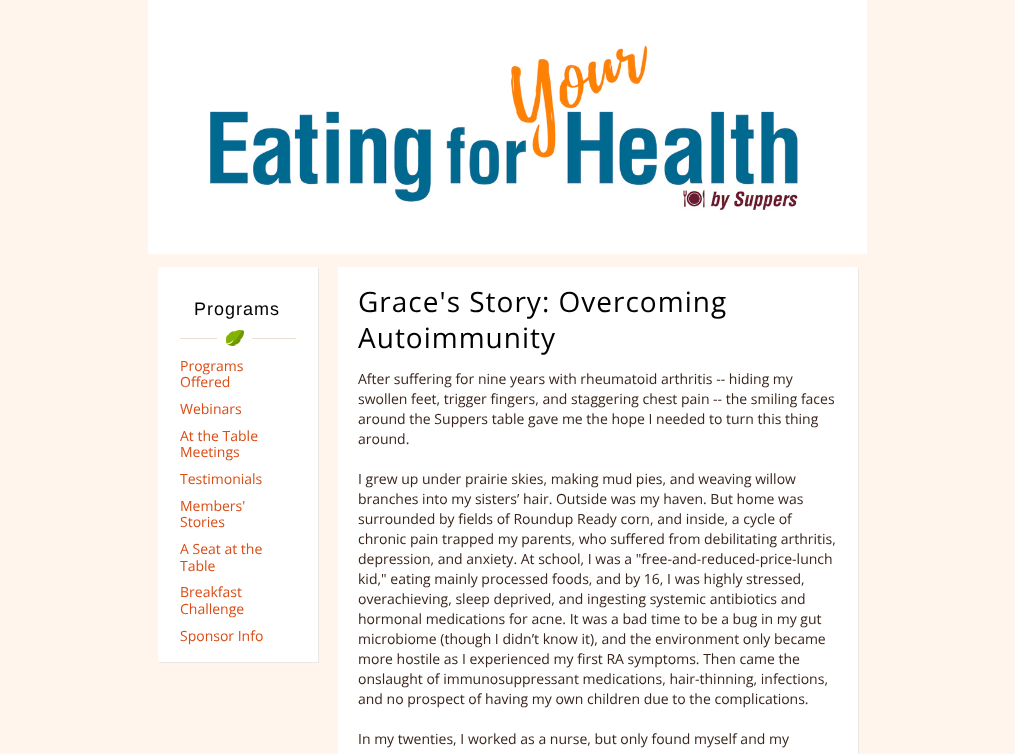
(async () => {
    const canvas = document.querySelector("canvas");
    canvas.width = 1015;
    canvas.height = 754;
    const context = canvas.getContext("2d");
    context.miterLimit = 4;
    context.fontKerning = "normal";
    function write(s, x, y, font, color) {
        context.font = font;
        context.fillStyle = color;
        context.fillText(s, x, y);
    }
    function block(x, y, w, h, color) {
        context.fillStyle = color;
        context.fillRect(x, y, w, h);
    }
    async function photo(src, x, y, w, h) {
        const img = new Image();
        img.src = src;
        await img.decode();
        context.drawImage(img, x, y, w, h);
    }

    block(0, 0, 1015, 754, "rgb(255, 245, 237)");
    await photo("media/1.png", 148, 0, 719, 254);
    context.fillStyle = "rgb(235, 231, 226)";
    context.beginPath();
    context.moveTo(159, 662);
    context.lineTo(159, 663);
    context.lineTo(319, 663);
    context.lineTo(319, 268);
    context.lineTo(318, 268);
    context.lineTo(318, 662);
    context.closePath();
    context.fill();
    block(158, 267, 160, 395, "rgb(255, 255, 255)");
    await photo("media/2.png", 180, 330, 116, 16);
    context.letterSpacing = "1px";
    write("Programs", 194, 315, "18px Liberation Sans", "rgb(0, 0, 0)");
    context.letterSpacing = "0px";
    write("Programs", 180, 371, "14px Open Sans", "rgb(218, 76, 20)");
    write("Offered", 180, 387, "14px Open Sans", "rgb(218, 76, 20)");
    write("Webinars", 180, 414, "14px Open Sans", "rgb(218, 76, 20)");
    write("At the Table", 180, 441, "14px Open Sans", "rgb(218, 76, 20)");
    write("Meetings", 180, 457, "14px Open Sans", "rgb(218, 76, 20)");
    write("Testimonials", 180, 484, "14px Open Sans", "rgb(218, 76, 20)");
    write("Members'", 180, 511, "14px Open Sans", "rgb(218, 76, 20)");
    write("Stories", 180, 527, "14px Open Sans", "rgb(218, 76, 20)");
    write("A Seat at the", 180, 554, "14px Open Sans", "rgb(218, 76, 20)");
    write("Table", 180, 571, "14px Open Sans", "rgb(218, 76, 20)");
    write("Breakfast", 180, 597, "14px Open Sans", "rgb(218, 76, 20)");
    write("Challenge", 180, 614, "14px Open Sans", "rgb(218, 76, 20)");
    write("Sponsor Info", 180, 641, "14px Open Sans", "rgb(218, 76, 20)");
    context.fillStyle = "rgb(235, 231, 226)";
    context.beginPath();
    context.moveTo(339, 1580);
    context.lineTo(339, 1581);
    context.lineTo(859, 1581);
    context.lineTo(859, 268);
    context.lineTo(858, 268);
    context.lineTo(858, 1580);
    context.closePath();
    context.fill();
    block(338, 267, 520, 487, "rgb(255, 255, 255)");
    context.letterSpacing = "1px";
    write("Grace's Story: Overcoming", 358, 312, "28px Open Sans", "rgb(0, 0, 0)");
    write("Autoimmunity", 358, 348, "28px Open Sans", "rgb(0, 0, 0)");
    context.letterSpacing = "0px";
    write("After suffering for nine years with rheumatoid arthritis -- hiding my", 358, 384, "14px Open Sans", "rgb(56, 36, 27)");
    write("swollen feet, trigger fingers, and staggering chest pain -- the smiling faces", 358, 404, "14px Open Sans", "rgb(56, 36, 27)");
    write("around the Suppers table gave me the hope I needed to turn this thing", 358, 424, "14px Open Sans", "rgb(56, 36, 27)");
    write("around.", 358, 444, "14px Open Sans", "rgb(56, 36, 27)");
    write("I grew up under prairie skies, making mud pies, and weaving willow", 358, 484, "14px Open Sans", "rgb(56, 36, 27)");
    write("branches into my sisters’ hair. Outside was my haven. But home was", 358, 504, "14px Open Sans", "rgb(56, 36, 27)");
    write("surrounded by fields of Roundup Ready corn, and inside, a cycle of", 358, 524, "14px Open Sans", "rgb(56, 36, 27)");
    write("chronic pain trapped my parents, who suffered from debilitating arthritis,", 358, 544, "14px Open Sans", "rgb(56, 36, 27)");
    write("depression, and anxiety. At school, I was a \"free-and-reduced-price-lunch", 358, 564, "14px Open Sans", "rgb(56, 36, 27)");
    write("kid,\" eating mainly processed foods, and by 16, I was highly stressed,", 358, 584, "14px Open Sans", "rgb(56, 36, 27)");
    write("overachieving, sleep deprived, and ingesting systemic antibiotics and", 358, 604, "14px Open Sans", "rgb(56, 36, 27)");
    write("hormonal medications for acne. It was a bad time to be a bug in my gut", 358, 624, "14px Open Sans", "rgb(56, 36, 27)");
    write("microbiome (though I didn’t know it), and the environment only became", 358, 644, "14px Open Sans", "rgb(56, 36, 27)");
    write("more hostile as I experienced my first RA symptoms. Then came the", 358, 664, "14px Open Sans", "rgb(56, 36, 27)");
    write("onslaught of immunosuppressant medications, hair-thinning, infections,", 358, 684, "14px Open Sans", "rgb(56, 36, 27)");
    write("and no prospect of having my own children due to the complications.", 358, 704, "14px Open Sans", "rgb(56, 36, 27)");
    write("In my twenties, I worked as a nurse, but only found myself and my", 358, 744, "14px Open Sans", "rgb(56, 36, 27)");
})();
